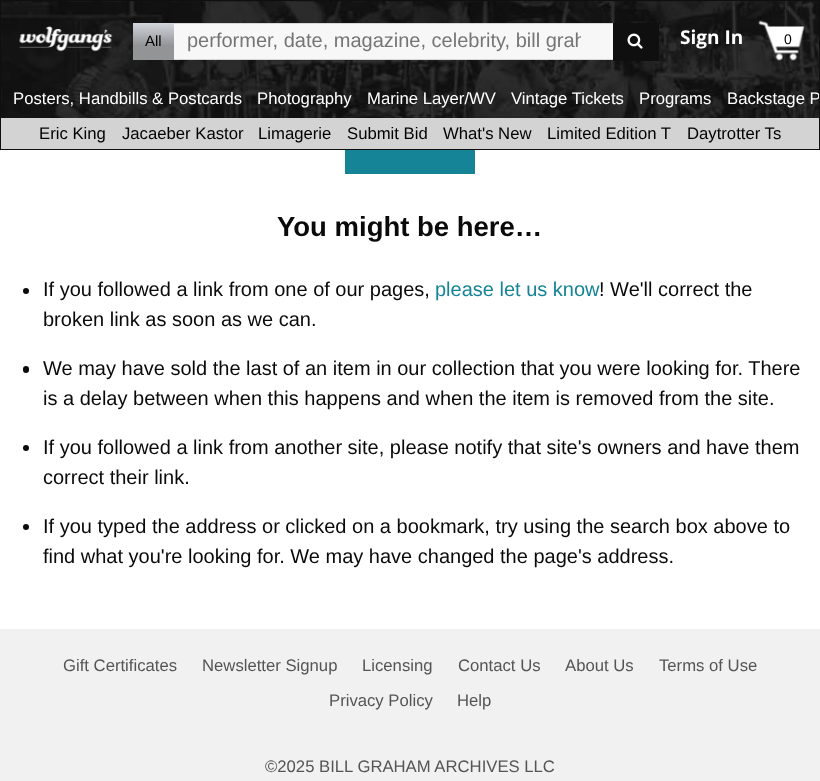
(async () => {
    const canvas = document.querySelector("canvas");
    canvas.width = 820;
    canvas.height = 781;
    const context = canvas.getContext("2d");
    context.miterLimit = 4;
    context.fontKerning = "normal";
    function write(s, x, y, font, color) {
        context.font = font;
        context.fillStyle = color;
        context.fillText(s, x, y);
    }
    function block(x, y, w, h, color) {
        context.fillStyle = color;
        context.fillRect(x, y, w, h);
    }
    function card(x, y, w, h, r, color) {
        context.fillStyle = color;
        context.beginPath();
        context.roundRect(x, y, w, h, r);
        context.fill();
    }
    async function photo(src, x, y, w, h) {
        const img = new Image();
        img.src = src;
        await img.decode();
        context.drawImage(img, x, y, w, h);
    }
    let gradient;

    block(0, 0, 820, 781, "rgb(255, 255, 255)");
    await photo("media/1.png", 1, 1, 818, 117);
    context.strokeStyle = "rgb(15, 15, 15)";
    context.strokeRect(0.5, 0.5, 819, 149);
    await photo("media/2.png", 19, 26, 94, 26);
    gradient = context.createLinearGradient(153, 23, 153, 60);
    gradient.addColorStop(0, "rgb(210, 215, 221)");
    gradient.addColorStop(0.61, "rgb(146, 148, 150)");
    context.fillStyle = gradient;
    context.fillRect(133, 23, 41, 37);
    write("All", 145, 46, "15px Liberation Sans", "rgb(0, 0, 0)");
    block(174, 24, 439, 35, "rgb(247, 247, 247)");
    block(174, 23, 439, 1, "rgb(215, 215, 215)");
    block(174, 59, 439, 1, "rgb(215, 215, 215)");
    context.save();
    context.beginPath();
    context.rect(186, 30, 395, 23);
    context.clip();
    write("performer, date, magazine, celebrity, bill grah", 187, 47, "20px Liberation Sans", "rgb(117, 117, 117)");
    context.restore();
    block(613, 23, 46, 38, "rgb(15, 15, 15)");
    await photo("media/3.png", 627, 33, 16, 16);
    await photo("media/4.png", 758, 20, 46, 41);
    write("Sign In", 680, 44, "bold 19px Open Sans", "rgb(255, 255, 255)");
    write("0", 784, 44, "14px Liberation Sans", "rgb(0, 0, 0)");
    write("Posters, Handbills & Postcards", 13, 104, "16.7px Liberation Sans", "rgb(255, 255, 255)");
    write("Photography", 257, 104, "16.7px Liberation Sans", "rgb(255, 255, 255)");
    write("Marine Layer/WV", 367, 104, "16.7px Liberation Sans", "rgb(255, 255, 255)");
    write("Vintage Tickets", 511, 104, "16.7px Liberation Sans", "rgb(255, 255, 255)");
    write("Programs", 639, 104, "16.7px Liberation Sans", "rgb(255, 255, 255)");
    context.save();
    context.beginPath();
    context.rect(1, 81, 818, 37);
    context.clip();
    write("Backstage P", 727, 104, "16.7px Liberation Sans", "rgb(255, 255, 255)");
    context.restore();
    block(1, 118, 818, 31, "rgb(211, 211, 211)");
    write("Eric King", 39, 139, "16.7px Liberation Sans", "rgb(0, 0, 0)");
    write("Jacaeber Kastor", 122, 139, "16.7px Liberation Sans", "rgb(0, 0, 0)");
    write("Limagerie", 258, 139, "16.7px Liberation Sans", "rgb(0, 0, 0)");
    write("Submit Bid", 347, 139, "16.7px Liberation Sans", "rgb(0, 0, 0)");
    write("What's New", 443, 139, "16.7px Liberation Sans", "rgb(0, 0, 0)");
    write("Limited Edition T", 547, 139, "16.7px Liberation Sans", "rgb(0, 0, 0)");
    write("Daytrotter Ts", 687, 139, "16.7px Liberation Sans", "rgb(0, 0, 0)");
    block(345, 150, 130, 24, "rgb(21, 132, 150)");
    write("You might be here…", 277, 236, "bold 27.5px Liberation Sans", "rgb(10, 10, 10)");
    context.beginPath();
    context.arc(26, 291, 3, 0, Math.PI * 2);
    context.fill();
    write("If you followed a link from one of our pages,", 43, 296, "20px Liberation Sans", "rgb(10, 10, 10)");
    write("please let us know", 435, 296, "20px Liberation Sans", "rgb(21, 132, 150)");
    write("! We'll correct the", 599, 296, "20px Liberation Sans", "rgb(10, 10, 10)");
    write("broken link as soon as we can.", 43, 326, "20px Liberation Sans", "rgb(10, 10, 10)");
    card(23, 366, 6, 7, 3, "rgb(10, 10, 10)");
    write("We may have sold the last of an item in our collection that you were looking for. There", 43, 375, "20px Liberation Sans", "rgb(10, 10, 10)");
    write("is a delay between when this happens and when the item is removed from the site.", 43, 405, "20px Liberation Sans", "rgb(10, 10, 10)");
    context.beginPath();
    context.arc(26, 448, 3, 0, Math.PI * 2);
    context.fill();
    write("If you followed a link from another site, please notify that site's owners and have them", 43, 454, "20px Liberation Sans", "rgb(10, 10, 10)");
    write("correct their link.", 43, 484, "20px Liberation Sans", "rgb(10, 10, 10)");
    context.beginPath();
    context.arc(26, 527, 3, 0, Math.PI * 2);
    context.fill();
    write("If you typed the address or clicked on a bookmark, try using the search box above to", 43, 533, "20px Liberation Sans", "rgb(10, 10, 10)");
    write("find what you're looking for. We may have changed the page's address.", 43, 563, "20px Liberation Sans", "rgb(10, 10, 10)");
    block(0, 629, 820, 152, "rgb(241, 241, 241)");
    write("Gift Certificates", 63, 671, "16.7px Liberation Sans", "rgb(85, 85, 85)");
    write("Newsletter Signup", 202, 671, "16.7px Liberation Sans", "rgb(85, 85, 85)");
    write("Licensing", 362, 671, "16.7px Liberation Sans", "rgb(85, 85, 85)");
    write("Contact Us", 458, 671, "16.7px Liberation Sans", "rgb(85, 85, 85)");
    write("About Us", 565, 671, "16.7px Liberation Sans", "rgb(85, 85, 85)");
    write("Terms of Use", 659, 671, "16.7px Liberation Sans", "rgb(85, 85, 85)");
    write("Privacy Policy", 329, 706, "16.7px Liberation Sans", "rgb(85, 85, 85)");
    write("Help", 457, 706, "16.7px Liberation Sans", "rgb(85, 85, 85)");
    write("©2025 BILL GRAHAM ARCHIVES LLC", 265, 772, "16.7px Liberation Sans", "rgb(85, 85, 85)");
})();
